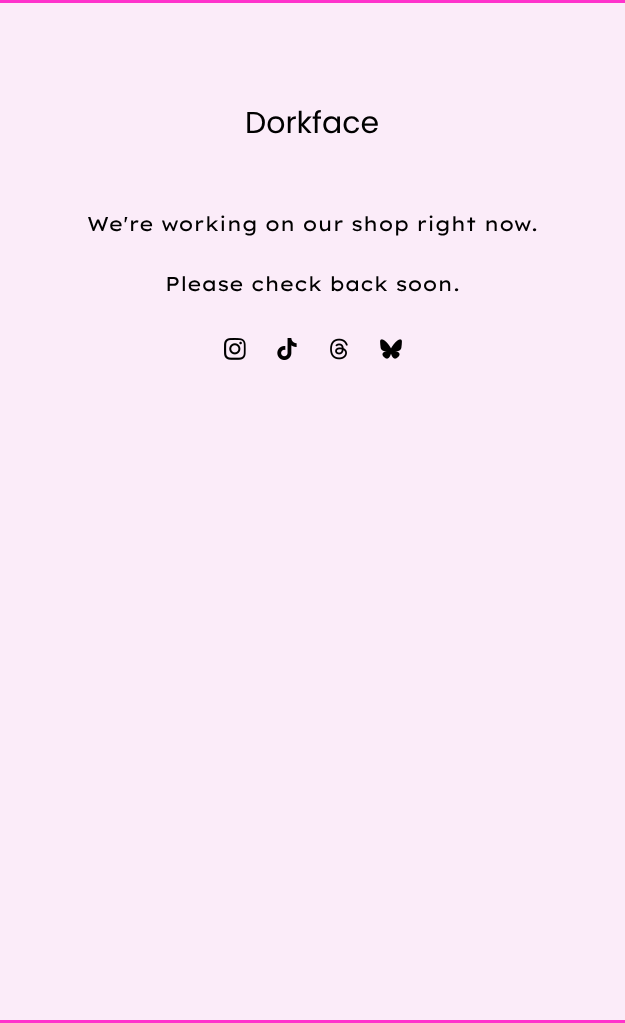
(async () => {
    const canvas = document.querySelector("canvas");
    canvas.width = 625;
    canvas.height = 1023;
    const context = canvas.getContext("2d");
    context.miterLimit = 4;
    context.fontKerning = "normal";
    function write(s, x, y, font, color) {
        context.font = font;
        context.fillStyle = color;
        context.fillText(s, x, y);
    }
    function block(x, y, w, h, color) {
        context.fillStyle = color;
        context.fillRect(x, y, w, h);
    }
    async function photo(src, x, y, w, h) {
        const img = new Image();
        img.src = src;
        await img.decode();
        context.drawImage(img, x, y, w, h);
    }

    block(0, 0, 625, 1023, "rgb(251, 236, 249)");
    block(0, 0, 625, 3, "rgb(255, 50, 204)");
    write("Dorkface", 245, 133, "30px Poppins", "rgb(0, 0, 0)");
    write("We're working on our shop right now.", 87, 231, "20px Lexend Exa", "rgb(0, 0, 0)");
    write("Please check back soon.", 165, 291, "20px Lexend Exa", "rgb(0, 0, 0)");
    await photo("media/1.png", 224, 338, 22, 22);
    await photo("media/2.png", 277, 338, 20, 22);
    await photo("media/3.png", 330, 338, 18, 22);
    await photo("media/4.png", 380, 339, 22, 20);
    block(0, 1020, 625, 3, "rgb(255, 50, 204)");
})();
